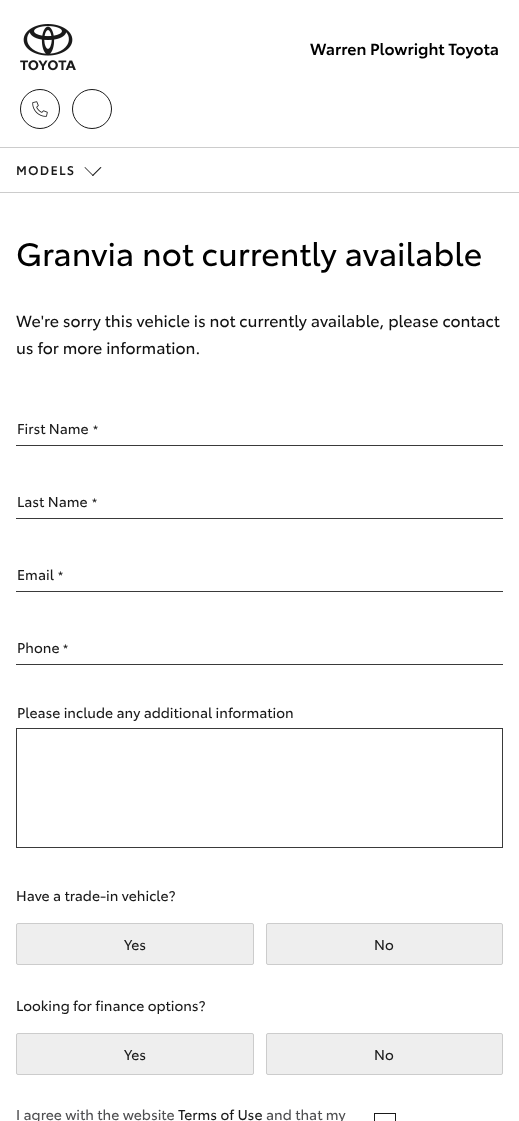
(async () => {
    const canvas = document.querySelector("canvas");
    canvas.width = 519;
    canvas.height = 1121;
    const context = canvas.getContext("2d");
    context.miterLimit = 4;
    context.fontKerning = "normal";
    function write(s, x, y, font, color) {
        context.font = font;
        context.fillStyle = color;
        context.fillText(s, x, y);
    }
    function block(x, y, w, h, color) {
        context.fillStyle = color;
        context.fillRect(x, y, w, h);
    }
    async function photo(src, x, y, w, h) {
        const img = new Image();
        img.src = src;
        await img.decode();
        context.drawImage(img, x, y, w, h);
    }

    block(0, 0, 519, 1121, "rgb(255, 255, 255)");
    await photo("media/1.png", 20, 24, 56, 47);
    write("Warren Plowright Toyota", 310, 55, "600 16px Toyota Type", "rgb(0, 0, 0)");
    await photo("media/2.png", 32, 101, 16, 16);
    context.beginPath();
    context.arc(40, 109, 19.5, 0, Math.PI * 2);
    context.strokeStyle = "rgb(26, 26, 26)";
    context.stroke();
    context.beginPath();
    context.arc(92, 109, 19.5, 0, Math.PI * 2);
    context.stroke();
    block(0, 147, 519, 1, "rgb(204, 204, 204)");
    block(0, 192, 519, 1, "rgb(204, 204, 204)");
    context.letterSpacing = "1.5px";
    write("MODELS", 16, 175, "bold 12px Toyota Type", "rgb(26, 26, 26)");
    context.beginPath();
    context.moveTo(100.5, 167);
    context.lineTo(101.5, 167.5);
    context.lineTo(93, 176);
    context.lineTo(92, 175.5);
    context.closePath();
    context.fill();
    context.beginPath();
    context.moveTo(85, 167);
    context.lineTo(93.5, 175.5);
    context.lineTo(93, 176);
    context.lineTo(84.5, 167.5);
    context.closePath();
    context.fill();
    context.letterSpacing = "0px";
    write("Granvia not currently available", 16, 266, "32px Toyota Type", "rgb(0, 0, 0)");
    write("We're sorry this vehicle is not currently available, please contact", 16, 327, "16px Toyota Type", "rgb(17, 17, 17)");
    write("us for more information.", 16, 354, "16px Toyota Type", "rgb(17, 17, 17)");
    write("First Name", 17, 434, "14px Toyota Type", "rgb(26, 26, 26)");
    write("*", 93, 434, "12px Toyota Type", "rgb(26, 26, 26)");
    block(16, 445, 487, 1, "rgb(58, 58, 58)");
    write("Last Name", 17, 507, "14px Toyota Type", "rgb(26, 26, 26)");
    write("*", 92, 507, "12px Toyota Type", "rgb(26, 26, 26)");
    block(16, 518, 487, 1, "rgb(58, 58, 58)");
    write("Email", 17, 580, "14px Toyota Type", "rgb(26, 26, 26)");
    write("*", 58, 580, "12px Toyota Type", "rgb(26, 26, 26)");
    block(16, 591, 487, 1, "rgb(58, 58, 58)");
    write("Phone", 17, 653, "14px Toyota Type", "rgb(26, 26, 26)");
    write("*", 63, 653, "12px Toyota Type", "rgb(26, 26, 26)");
    block(16, 664, 487, 1, "rgb(58, 58, 58)");
    write("Please include any additional information", 17, 718, "14px Toyota Type", "rgb(26, 26, 26)");
    context.strokeStyle = "rgb(58, 58, 58)";
    context.strokeRect(16.5, 728.5, 486, 119);
    write("Have a trade-in vehicle?", 16, 901, "14px Toyota Type", "rgb(26, 26, 26)");
    context.fillStyle = "rgb(238, 238, 238)";
    context.beginPath();
    context.roundRect(16.5, 923.5, 237, 41, 1.5);
    context.fill();
    context.strokeStyle = "rgb(204, 204, 204)";
    context.stroke();
    write("Yes", 124, 950, "14px Toyota Type", "rgb(26, 26, 26)");
    context.fillStyle = "rgb(238, 238, 238)";
    context.beginPath();
    context.roundRect(266.5, 923.5, 236, 41, 1.5);
    context.fill();
    context.stroke();
    write("No", 374, 950, "14px Toyota Type", "rgb(26, 26, 26)");
    write("Looking for finance options?", 16, 1011, "14px Toyota Type", "rgb(26, 26, 26)");
    context.fillStyle = "rgb(238, 238, 238)";
    context.beginPath();
    context.roundRect(16.5, 1033.5, 237, 41, 1.5);
    context.fill();
    context.stroke();
    write("Yes", 124, 1060, "14px Toyota Type", "rgb(26, 26, 26)");
    context.fillStyle = "rgb(238, 238, 238)";
    context.beginPath();
    context.roundRect(266.5, 1033.5, 236, 41, 1.5);
    context.fill();
    context.stroke();
    write("No", 374, 1060, "14px Toyota Type", "rgb(26, 26, 26)");
    write("I agree with the website", 16, 1120, "14px Toyota Type", "rgb(79, 79, 81)");
    write("Terms of Use", 178, 1120, "14px Toyota Type", "rgb(26, 26, 26)");
    write("and that my", 266, 1120, "14px Toyota Type", "rgb(79, 79, 81)");
    context.strokeStyle = "rgb(26, 26, 26)";
    context.strokeRect(374.5, 1113.5, 21, 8);
})();
